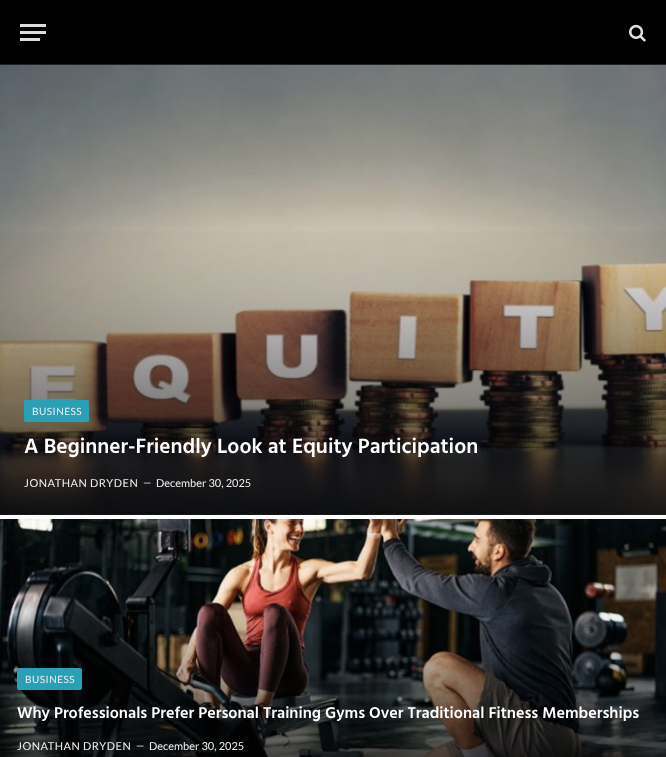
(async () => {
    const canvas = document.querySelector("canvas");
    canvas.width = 666;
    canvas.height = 757;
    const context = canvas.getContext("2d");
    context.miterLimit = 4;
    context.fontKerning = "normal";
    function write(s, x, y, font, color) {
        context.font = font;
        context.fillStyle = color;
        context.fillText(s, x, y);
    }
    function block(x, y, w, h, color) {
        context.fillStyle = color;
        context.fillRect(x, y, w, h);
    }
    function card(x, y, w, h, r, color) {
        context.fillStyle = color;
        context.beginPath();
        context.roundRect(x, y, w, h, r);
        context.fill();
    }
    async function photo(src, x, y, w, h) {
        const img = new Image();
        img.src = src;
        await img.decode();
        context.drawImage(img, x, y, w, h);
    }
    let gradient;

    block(0, 0, 666, 757, "rgb(255, 255, 255)");
    block(0, 0, 666, 64, "rgb(0, 0, 0)");
    block(0, 64, 666, 1, "rgb(34, 34, 34)");
    block(20, 38, 20, 3, "rgb(221, 221, 221)");
    block(20, 24, 26, 3, "rgb(221, 221, 221)");
    block(20, 31, 26, 3, "rgb(221, 221, 221)");
    await photo("media/1.png", 629, 24, 17, 18);
    await photo("media/2.png", 0, 65, 666, 450);
    gradient = context.createLinearGradient(333, 65, 333, 515);
    gradient.addColorStop(0.35, "rgba(0, 0, 0, 0)");
    gradient.addColorStop(1, "rgba(0, 0, 0, 0.77)");
    context.fillStyle = gradient;
    context.fillRect(0, 231, 666, 284);
    card(24, 400, 65, 22, 2, "rgb(41, 160, 181)");
    context.letterSpacing = "0.5px";
    write("BUSINESS", 32, 415, "10px Lato", "rgb(239, 239, 239)");
    context.letterSpacing = "0px";
    write("A Beginner-Friendly Look at Equity Participation", 24, 453, "600 21.3px Hind", "rgb(255, 255, 255)");
    context.letterSpacing = "0.5px";
    write("JONATHAN DRYDEN", 24, 487, "11px Lato", "rgb(239, 239, 239)");
    context.letterSpacing = "0px";
    write("—", 143, 486, "10px Lato", "rgb(239, 239, 239)");
    write("December 30, 2025", 156, 487, "11px Lato", "rgb(239, 239, 239)");
    await photo("media/3.png", 0, 519, 666, 238);
    card(17, 668, 65, 22, 2, "rgb(41, 160, 181)");
    context.letterSpacing = "0.5px";
    write("BUSINESS", 25, 683, "10px Lato", "rgb(239, 239, 239)");
    context.letterSpacing = "0px";
    write("Why Professionals Prefer Personal Training Gyms Over Traditional Fitness Memberships", 17, 718, "600 16.15px Hind", "rgb(255, 255, 255)");
    context.letterSpacing = "0.5px";
    write("JONATHAN DRYDEN", 17, 750, "11px Lato", "rgb(239, 239, 239)");
    context.letterSpacing = "0px";
    write("—", 136, 749, "10px Lato", "rgb(239, 239, 239)");
    write("December 30, 2025", 149, 750, "11px Lato", "rgb(239, 239, 239)");
})();
